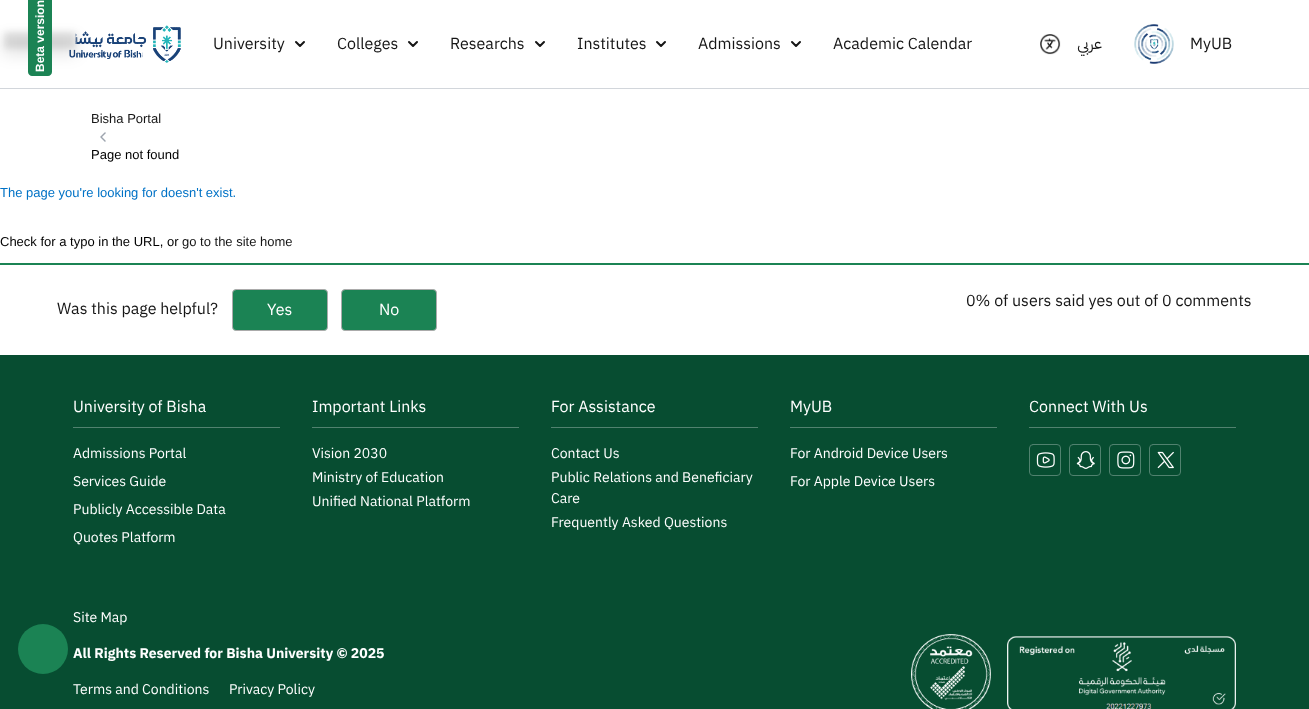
(async () => {
    const canvas = document.querySelector("canvas");
    canvas.width = 1309;
    canvas.height = 709;
    const context = canvas.getContext("2d");
    context.miterLimit = 4;
    context.fontKerning = "normal";
    function write(s, x, y, font, color) {
        context.font = font;
        context.fillStyle = color;
        context.fillText(s, x, y);
    }
    function block(x, y, w, h, color) {
        context.fillStyle = color;
        context.fillRect(x, y, w, h);
    }
    async function photo(src, x, y, w, h) {
        const img = new Image();
        img.src = src;
        await img.decode();
        context.drawImage(img, x, y, w, h);
    }

    block(0, 0, 1309, 709, "rgb(255, 255, 255)");
    block(0, 88, 1309, 1, "rgb(210, 214, 219)");
    await photo("media/1.png", 69, 25, 112, 38);
    context.fillStyle = "rgba(0, 0, 0, 0.1)";
    context.filter = "blur(3px)";
    context.beginPath();
    context.rect(4, 32, 72, 16);
    context.fill();
    context.filter = "none";
    context.filter = "blur(7.5px)";
    context.beginPath();
    context.roundRect(3, 37, 74, 18, 1);
    context.fill();
    context.filter = "none";
    context.fillStyle = "rgb(27, 131, 84)";
    context.beginPath();
    context.moveTo(28, 72);
    context.lineTo(28, 0);
    context.bezierCurveTo(28, -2, 30, -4, 32, -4);
    context.lineTo(48, -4);
    context.bezierCurveTo(50, -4, 52, -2, 52, 0);
    context.lineTo(52, 72);
    context.bezierCurveTo(52, 74, 50, 76, 48, 76);
    context.lineTo(32, 76);
    context.bezierCurveTo(30, 76, 28, 74, 28, 72);
    context.closePath();
    context.fill();
    context.font = "bold 12px Liberation Sans";
    context.fillStyle = "rgb(255, 255, 255)";
    context.save();
    context.translate(44, 72);
    context.rotate(-90 * Math.PI / 180);
    context.fillText("Beta version", 0, 0);
    context.restore();
    write("University", 213, 49, "16px IBM Plex Sans Arabic", "rgb(22, 22, 22)");
    context.beginPath();
    context.moveTo(296, 42);
    context.lineTo(300, 46);
    context.lineTo(304, 42);
    context.strokeStyle = "rgb(22, 22, 22)";
    context.lineWidth = 2;
    context.lineCap = "round";
    context.lineJoin = "round";
    context.stroke();
    write("Colleges", 337, 49, "16px IBM Plex Sans Arabic", "rgb(22, 22, 22)");
    context.beginPath();
    context.moveTo(409, 42);
    context.lineTo(413, 46);
    context.lineTo(417, 42);
    context.stroke();
    write("Researchs", 450, 49, "16px IBM Plex Sans Arabic", "rgb(22, 22, 22)");
    context.beginPath();
    context.moveTo(536, 42);
    context.lineTo(540, 46);
    context.lineTo(544, 42);
    context.stroke();
    write("Institutes", 577, 49, "16px IBM Plex Sans Arabic", "rgb(22, 22, 22)");
    context.beginPath();
    context.moveTo(657, 42);
    context.lineTo(661, 46);
    context.lineTo(665, 42);
    context.stroke();
    write("Admissions", 698, 49, "16px IBM Plex Sans Arabic", "rgb(22, 22, 22)");
    context.beginPath();
    context.moveTo(792, 42);
    context.lineTo(796, 46);
    context.lineTo(800, 42);
    context.stroke();
    write("Academic Calendar", 833, 49, "16px IBM Plex Sans Arabic", "rgb(22, 22, 22)");
    await photo("media/2.png", 1040, 34, 21, 21);
    context.direction = "rtl";
    write("عربي", 1102, 49, "16px IBM Plex Sans Arabic", "rgb(22, 22, 22)");
    await photo("media/3.png", 1134, 24, 40, 40);
    context.direction = "ltr";
    write("MyUB", 1190, 49, "16px IBM Plex Sans Arabic", "rgb(22, 22, 22)");
    write("Bisha Portal", 91, 123, "13px Liberation Sans", "rgb(22, 22, 22)");
    await photo("media/4.png", 100, 132, 6, 10);
    write("Page not found", 91, 159, "13px Liberation Sans", "rgb(0, 0, 0)");
    write("The page you're looking for doesn't exist.", 0, 197, "13px Liberation Sans", "rgb(0, 114, 198)");
    write("Check for a typo in the URL, or", 0, 246, "13px Liberation Sans", "rgb(0, 0, 0)");
    write("go to the site home", 182, 246, "13px Liberation Sans", "rgb(22, 22, 22)");
    block(0, 263, 1309, 2, "rgb(27, 131, 84)");
    write("Was this page helpful?", 57, 314, "16px IBM Plex Sans Arabic", "rgb(22, 22, 22)");
    context.fillStyle = "rgb(27, 131, 84)";
    context.beginPath();
    context.roundRect(232.5, 289.5, 95, 41, 3.5);
    context.fill();
    context.strokeStyle = "rgb(171, 171, 171)";
    context.lineWidth = 1;
    context.lineJoin = "miter";
    context.stroke();
    write("Yes", 267, 315, "16px IBM Plex Sans Arabic", "rgb(255, 255, 255)");
    context.fillStyle = "rgb(27, 131, 84)";
    context.beginPath();
    context.roundRect(341.5, 289.5, 95, 41, 3.5);
    context.fill();
    context.stroke();
    write("No", 379, 315, "16px IBM Plex Sans Arabic", "rgb(255, 255, 255)");
    write("0% of users said yes out of 0 comments", 966, 306, "16px IBM Plex Sans Arabic", "rgb(22, 22, 22)");
    block(0, 355, 1309, 354, "rgb(7, 77, 49)");
    block(73, 427, 207, 1, "rgb(81, 130, 111)");
    write("University of Bisha", 73, 412, "16px IBM Plex Sans Arabic", "rgb(255, 255, 255)");
    write("Admissions Portal", 73, 458, "14px IBM Plex Sans Arabic", "rgb(255, 255, 255)");
    write("Services Guide", 73, 486, "14px IBM Plex Sans Arabic", "rgb(255, 255, 255)");
    write("Publicly Accessible Data", 73, 514, "14px IBM Plex Sans Arabic", "rgb(255, 255, 255)");
    write("Quotes Platform", 73, 542, "14px IBM Plex Sans Arabic", "rgb(255, 255, 255)");
    block(312, 427, 207, 1, "rgb(81, 130, 111)");
    write("Important Links", 312, 412, "16px IBM Plex Sans Arabic", "rgb(255, 255, 255)");
    write("Vision 2030", 312, 458, "14px IBM Plex Sans Arabic", "rgb(255, 255, 255)");
    write("Ministry of Education", 312, 482, "14px IBM Plex Sans Arabic", "rgb(255, 255, 255)");
    write("Unified National Platform", 312, 506, "14px IBM Plex Sans Arabic", "rgb(255, 255, 255)");
    block(551, 427, 207, 1, "rgb(81, 130, 111)");
    write("For Assistance", 551, 412, "16px IBM Plex Sans Arabic", "rgb(255, 255, 255)");
    write("Contact Us", 551, 458, "14px IBM Plex Sans Arabic", "rgb(255, 255, 255)");
    write("Public Relations and Beneficiary", 551, 482, "14px IBM Plex Sans Arabic", "rgb(255, 255, 255)");
    write("Care", 551, 503, "14px IBM Plex Sans Arabic", "rgb(255, 255, 255)");
    write("Frequently Asked Questions", 551, 527, "14px IBM Plex Sans Arabic", "rgb(255, 255, 255)");
    block(790, 427, 207, 1, "rgb(81, 130, 111)");
    write("MyUB", 790, 412, "16px IBM Plex Sans Arabic", "rgb(255, 255, 255)");
    write("For Android Device Users", 790, 458, "14px IBM Plex Sans Arabic", "rgb(255, 255, 255)");
    write("For Apple Device Users", 790, 486, "14px IBM Plex Sans Arabic", "rgb(255, 255, 255)");
    block(1029, 427, 207, 1, "rgb(81, 130, 111)");
    write("Connect With Us", 1029, 412, "16px IBM Plex Sans Arabic", "rgb(255, 255, 255)");
    context.beginPath();
    context.roundRect(1029.5, 444.5, 31, 31, 3.5);
    context.strokeStyle = "rgb(81, 130, 111)";
    context.stroke();
    await photo("media/5.png", 1036, 452, 19, 16);
    context.beginPath();
    context.roundRect(1069.5, 444.5, 31, 31, 3.5);
    context.stroke();
    await photo("media/6.png", 1076, 451, 19, 18);
    context.beginPath();
    context.roundRect(1109.5, 444.5, 31, 31, 3.5);
    context.stroke();
    await photo("media/7.png", 1117, 451, 18, 18);
    context.beginPath();
    context.roundRect(1149.5, 444.5, 31, 31, 3.5);
    context.stroke();
    await photo("media/8.png", 1157, 451, 17, 18);
    write("Site Map", 73, 622, "14px IBM Plex Sans Arabic", "rgb(255, 255, 255)");
    write("All Rights Reserved for Bisha University © 2025", 73, 658, "bold 14px IBM Plex Sans Arabic", "rgb(255, 255, 255)");
    write("Terms and Conditions", 73, 694, "14px IBM Plex Sans Arabic", "rgb(255, 255, 255)");
    write("Privacy Policy", 229, 694, "14px IBM Plex Sans Arabic", "rgb(255, 255, 255)");
    await photo("media/9.png", 911, 634, 80, 75);
    await photo("media/10.png", 1007, 636, 229, 73);
    context.fillStyle = "rgb(27, 131, 84)";
    context.beginPath();
    context.arc(43, 649, 25, 0, Math.PI * 2);
    context.fill();
})();
